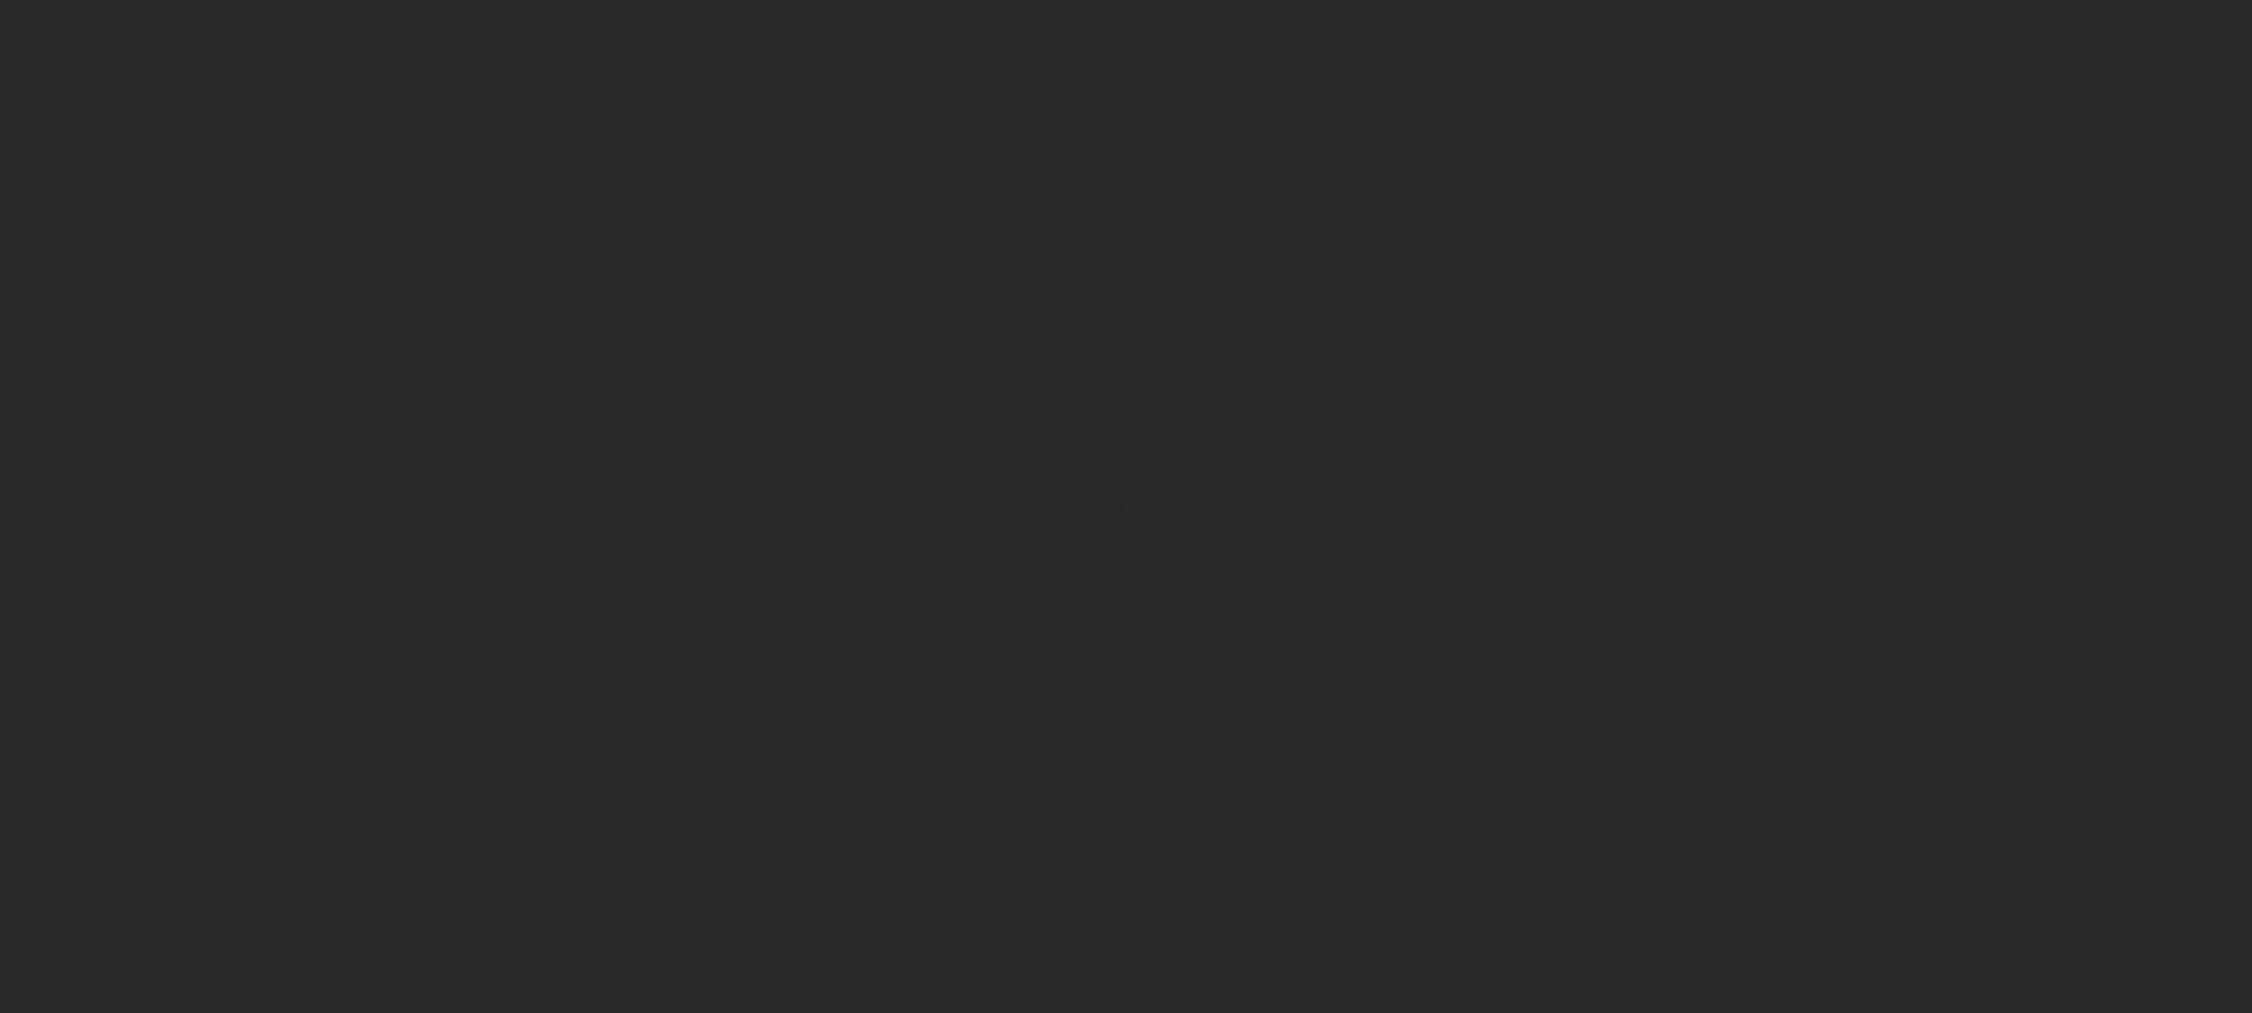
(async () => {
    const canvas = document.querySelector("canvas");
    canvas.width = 2252;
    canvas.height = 1013;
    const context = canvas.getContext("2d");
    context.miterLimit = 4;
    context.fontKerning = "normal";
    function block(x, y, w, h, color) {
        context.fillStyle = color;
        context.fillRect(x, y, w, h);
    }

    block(0, 0, 2252, 1013, "rgb(41, 41, 41)");
    context.beginPath();
    context.moveTo(1125.5, 506);
    context.bezierCurveTo(1126, 505.5, 1127, 505.5, 1127.5, 506);
    context.strokeStyle = "rgb(193, 157, 96)";
    context.lineWidth = 0.1;
    context.stroke();
    context.beginPath();
    context.moveTo(1127.5, 506);
    context.bezierCurveTo(1129, 507.5, 1125.5, 509.5, 1125, 507.5);
    context.lineTo(1125.5, 506);
    context.strokeStyle = "rgb(84, 84, 84)";
    context.stroke();
})();
